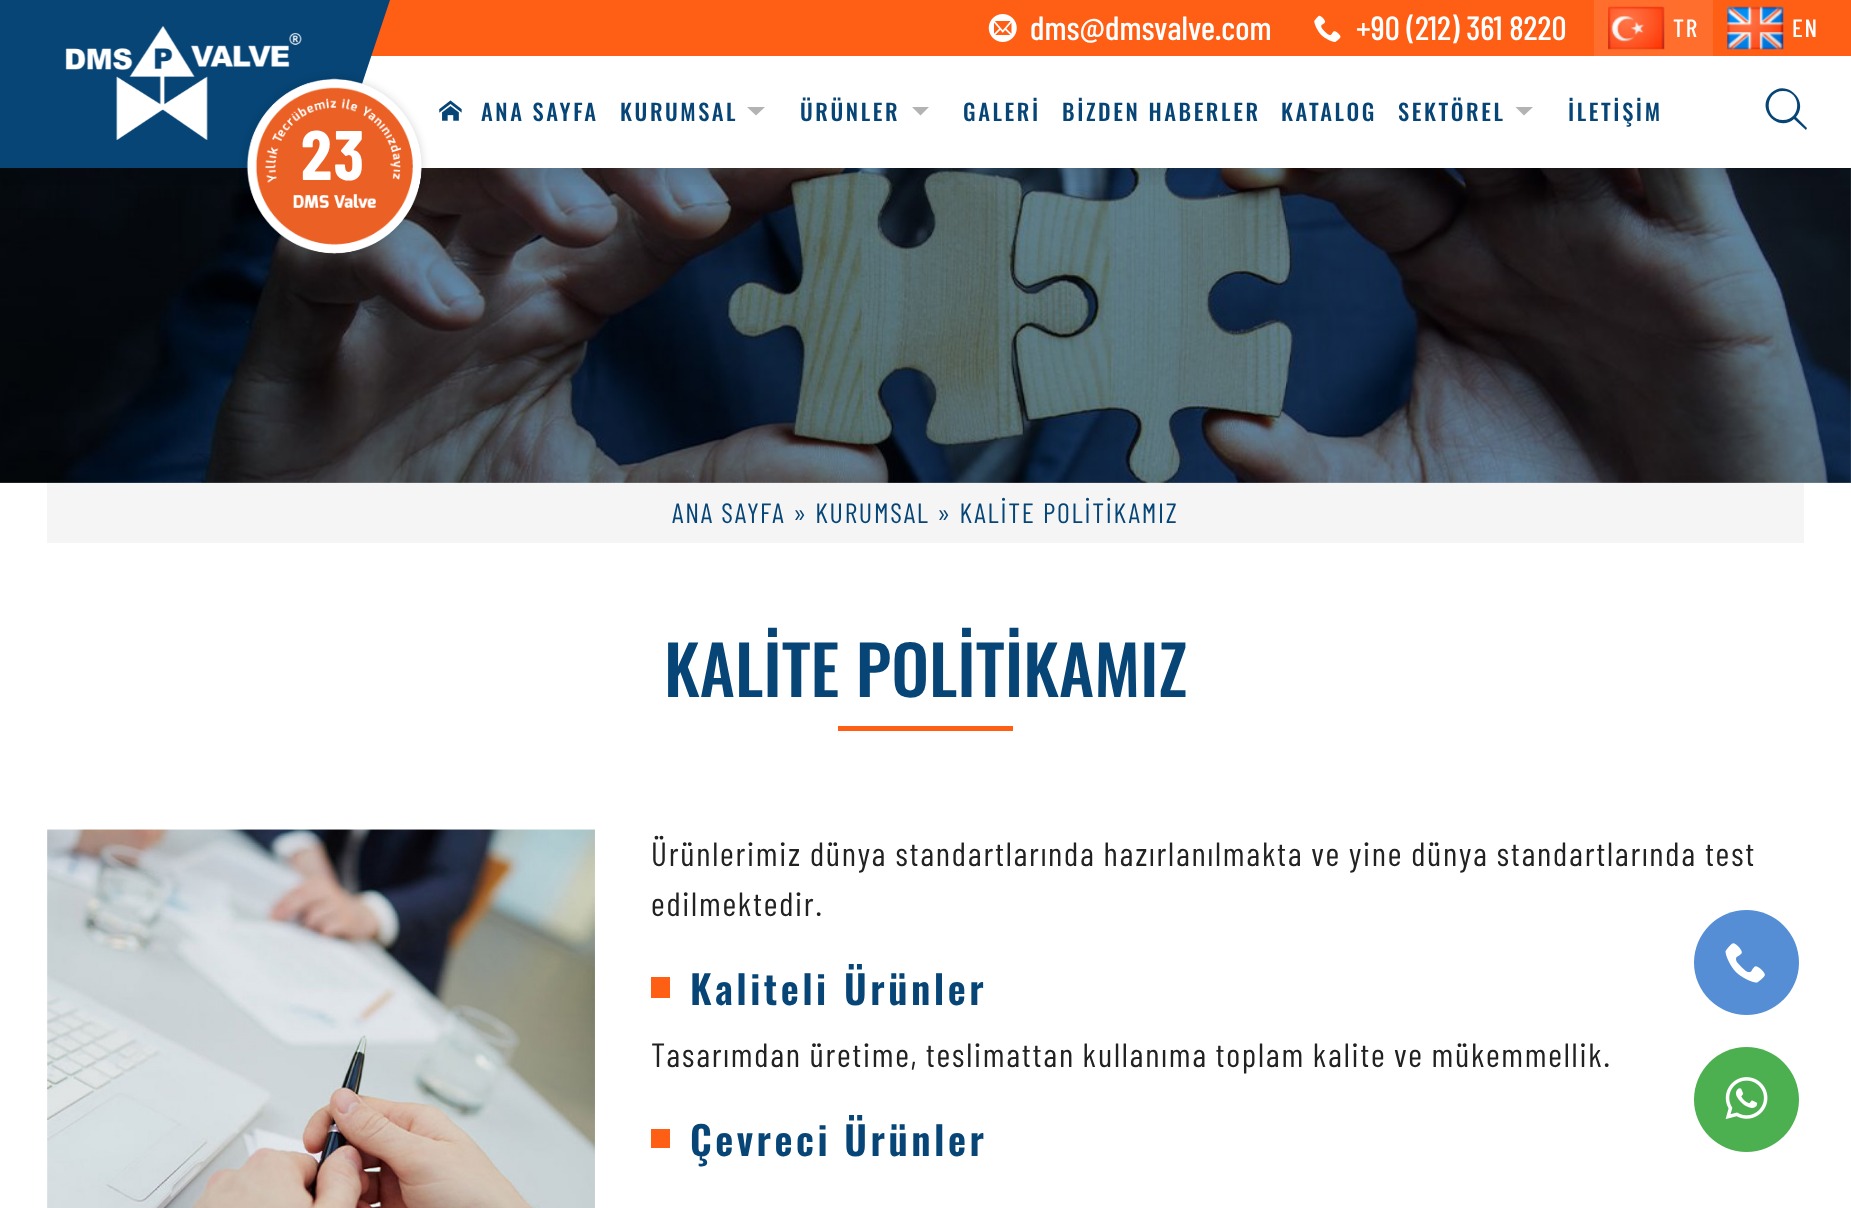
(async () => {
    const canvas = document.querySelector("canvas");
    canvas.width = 1851;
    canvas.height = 1208;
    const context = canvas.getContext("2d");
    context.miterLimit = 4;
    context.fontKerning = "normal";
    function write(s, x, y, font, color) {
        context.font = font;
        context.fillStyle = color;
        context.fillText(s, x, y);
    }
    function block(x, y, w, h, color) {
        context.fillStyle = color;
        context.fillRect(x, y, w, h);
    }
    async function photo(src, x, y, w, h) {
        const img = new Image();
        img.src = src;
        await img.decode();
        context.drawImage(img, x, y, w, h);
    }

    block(0, 0, 1851, 1208, "rgb(255, 255, 255)");
    block(371, 0, 1480, 56, "rgb(255, 94, 21)");
    block(1594, 0, 119, 56, "rgb(255, 110, 44)");
    await photo("media/3.png", 1608, 6, 57, 44);
    await photo("media/4.png", 1727, 6, 57, 44);
    await photo("media/8.png", 0, 168, 1851, 315);
    context.save();
    context.beginPath();
    context.rect(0, 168, 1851, 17);
    context.clip();
    context.fillStyle = "rgba(0, 0, 0, 0.1)";
    context.filter = "blur(9px)";
    context.beginPath();
    context.rect(0, 65, 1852, 112);
    context.fill();
    context.filter = "none";
    context.restore();
    await photo("media/1.png", 988, 14, 29, 28);
    write("dms@dmsvalve.com", 1030, 40, "500 33.6px Barlow Condensed", "rgb(255, 255, 255)");
    await photo("media/2.png", 1314, 15, 27, 27);
    write("+90 (212) 361 8220", 1356, 40, "500 33.6px Barlow Condensed", "rgb(255, 255, 255)");
    context.letterSpacing = "1.75px";
    write("TR", 1673, 37, "500 25px Barlow Condensed", "rgb(255, 255, 255)");
    write("EN", 1792, 37, "500 25px Barlow Condensed", "rgb(255, 255, 255)");
    block(0, 0, 334, 168, "rgb(7, 69, 118)");
    await photo("media/5.png", 65, 26, 237, 114);
    context.beginPath();
    context.moveTo(334, 0);
    context.lineTo(390, 0);
    context.lineTo(334, 168);
    context.closePath();
    context.fill();
    await photo("media/6.png", 439, 100, 23, 21);
    context.letterSpacing = "2.6px";
    write("ANA SAYFA", 481, 121, "500 22.5px Oswald", "rgb(7, 69, 118)");
    write("KURUMSAL", 620, 121, "500 22.5px Oswald", "rgb(7, 69, 118)");
    context.fillStyle = "rgb(179, 179, 179)";
    context.beginPath();
    context.moveTo(747, 107);
    context.lineTo(765, 107);
    context.lineTo(756, 115.5);
    context.closePath();
    context.fill();
    write("ÜRÜNLER", 800, 121, "500 22.5px Oswald", "rgb(7, 69, 118)");
    context.fillStyle = "rgb(179, 179, 179)";
    context.beginPath();
    context.moveTo(912, 107);
    context.lineTo(929, 107);
    context.lineTo(920.5, 115.5);
    context.closePath();
    context.fill();
    write("GALERİ", 963, 121, "500 22.5px Oswald", "rgb(7, 69, 118)");
    write("BİZDEN HABERLER", 1062, 121, "500 22.5px Oswald", "rgb(7, 69, 118)");
    write("KATALOG", 1281, 121, "500 22.5px Oswald", "rgb(7, 69, 118)");
    write("SEKTÖREL", 1398, 121, "500 22.5px Oswald", "rgb(7, 69, 118)");
    context.fillStyle = "rgb(179, 179, 179)";
    context.beginPath();
    context.moveTo(1515.5, 107);
    context.lineTo(1533, 107);
    context.lineTo(1524, 115.5);
    context.closePath();
    context.fill();
    write("İLETİŞİM", 1568, 121, "500 22.5px Oswald", "rgb(7, 69, 118)");
    context.beginPath();
    context.moveTo(1783, 120);
    context.bezierCurveTo(1764, 120, 1764, 91, 1783, 91);
    context.bezierCurveTo(1802, 91, 1802, 120, 1783, 120);
    context.closePath();
    context.moveTo(1796, 117);
    context.bezierCurveTo(1810, 101, 1786, 78, 1771, 93);
    context.bezierCurveTo(1755, 109, 1778, 133, 1794, 119);
    context.lineTo(1806, 130);
    context.lineTo(1807, 128);
    context.closePath();
    context.fill();
    context.fillStyle = "rgba(0, 0, 0, 0.15)";
    context.filter = "blur(4.5px)";
    context.beginPath();
    context.roundRect(247, 79, 175, 175, 87.5);
    context.fill();
    context.filter = "none";
    await photo("media/7.png", 246, 78, 176, 176);
    context.letterSpacing = "1.75px";
    write("23", 301, 180, "bold 70px Barlow Condensed", "rgb(255, 255, 255)");
    block(47, 483, 1757, 60, "rgb(245, 245, 245)");
    write("ANA SAYFA » KURUMSAL » KALİTE POLİTİKAMIZ", 672, 523, "28px Barlow Condensed", "rgb(7, 69, 118)");
    context.letterSpacing = "0px";
    write("KALİTE POLİTİKAMIZ", 664, 697, "500 67.25px Oswald", "rgb(7, 69, 118)");
    block(838, 726, 175, 5, "rgb(255, 94, 21)");
    await photo("media/9.png", 47, 829, 548, 379);
    context.letterSpacing = "1.75px";
    context.wordSpacing = "-0.5px";
    write("Ürünlerimiz dünya standartlarında hazırlanılmakta ve yine dünya standartlarında test", 651, 866, "33.6px Barlow Condensed", "rgb(34, 34, 34)");
    context.wordSpacing = "0px";
    write("edilmektedir.", 651, 916, "33.6px Barlow Condensed", "rgb(34, 34, 34)");
    block(651, 977, 19, 21, "rgb(255, 94, 21)");
    context.letterSpacing = "3.5px";
    context.wordSpacing = "1px";
    write("Kaliteli Ürünler", 690, 1005, "600 39.25px Oswald", "rgb(7, 69, 118)");
    context.letterSpacing = "1.75px";
    context.wordSpacing = "-0.75px";
    write("Tasarımdan üretime, teslimattan kullanıma toplam kalite ve mükemmellik.", 651, 1067, "33.6px Barlow Condensed", "rgb(34, 34, 34)");
    block(651, 1129, 19, 19, "rgb(255, 94, 21)");
    context.letterSpacing = "3.5px";
    context.wordSpacing = "0px";
    write("Çevreci Ürünler", 690, 1156, "600 39.25px Oswald", "rgb(7, 69, 118)");
    context.fillStyle = "rgb(85, 142, 213)";
    context.beginPath();
    context.arc(1746.5, 962.5, 52.5, 0, Math.PI * 2);
    context.fill();
    await photo("media/10.png", 1725, 943, 40, 40);
    context.fillStyle = "rgb(76, 175, 80)";
    context.beginPath();
    context.arc(1746.5, 1099.5, 52.5, 0, Math.PI * 2);
    context.fill();
    await photo("media/11.png", 1725, 1077, 43, 43);
})();
